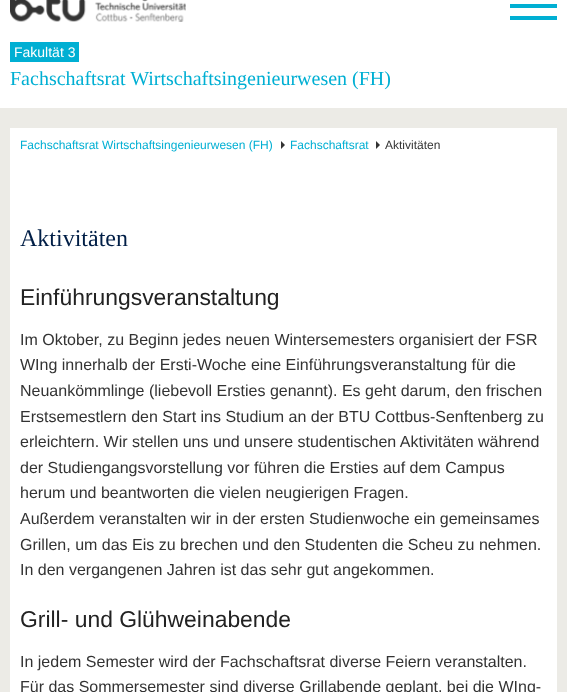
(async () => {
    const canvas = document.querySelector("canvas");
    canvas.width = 567;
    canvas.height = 692;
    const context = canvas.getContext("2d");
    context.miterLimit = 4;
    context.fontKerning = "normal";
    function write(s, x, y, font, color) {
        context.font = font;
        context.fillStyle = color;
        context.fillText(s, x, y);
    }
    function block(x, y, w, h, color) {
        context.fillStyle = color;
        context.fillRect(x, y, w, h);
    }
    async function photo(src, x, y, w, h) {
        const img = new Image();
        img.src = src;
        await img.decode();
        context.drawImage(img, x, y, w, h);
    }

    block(0, 0, 567, 692, "rgb(255, 255, 255)");
    await photo("media/1.png", 10, 0, 176, 22);
    block(510, 16, 47, 4, "rgb(0, 175, 211)");
    block(510, 4, 47, 4, "rgb(0, 175, 211)");
    block(10, 42, 69, 20, "rgb(0, 175, 211)");
    write("Fakultät 3", 14, 57, "14px Liberation Sans", "rgb(255, 255, 255)");
    write("Fachschaftsrat Wirtschaftsingenieurwesen (FH)", 10, 85, "20px Liberation Serif", "rgb(0, 175, 211)");
    block(0, 108, 567, 584, "rgb(236, 235, 230)");
    block(10, 128, 547, 564, "rgb(255, 255, 255)");
    write("Fachschaftsrat Wirtschaftsingenieurwesen (FH)", 20, 149, "12px Liberation Sans", "rgb(0, 175, 211)");
    context.fillStyle = "rgb(51, 51, 51)";
    context.beginPath();
    context.moveTo(281, 149);
    context.lineTo(281, 141);
    context.lineTo(285, 145);
    context.closePath();
    context.fill();
    write("Fachschaftsrat", 290, 149, "12px Liberation Sans", "rgb(0, 175, 211)");
    context.fillStyle = "rgb(51, 51, 51)";
    context.beginPath();
    context.moveTo(376, 149);
    context.lineTo(376, 141);
    context.lineTo(380, 145);
    context.closePath();
    context.fill();
    write("Aktivitäten", 385, 149, "12px Liberation Sans", "rgb(51, 51, 51)");
    write("Aktivitäten", 20, 246, "24px Liberation Serif", "rgb(0, 30, 70)");
    write("Einführungsveranstaltung", 20, 305, "22.9px Liberation Sans", "rgb(34, 34, 34)");
    write("Im Oktober, zu Beginn jedes neuen Wintersemesters organisiert der FSR", 20, 345, "16px Liberation Sans", "rgb(51, 51, 51)");
    write("WIng innerhalb der Ersti-Woche eine Einführungsveranstaltung für die", 20, 370, "16px Liberation Sans", "rgb(51, 51, 51)");
    write("Neuankömmlinge (liebevoll Ersties genannt). Es geht darum, den frischen", 20, 396, "16px Liberation Sans", "rgb(51, 51, 51)");
    write("Erstsemestlern den Start ins Studium an der BTU Cottbus-Senftenberg zu", 20, 422, "16px Liberation Sans", "rgb(51, 51, 51)");
    write("erleichtern. Wir stellen uns und unsere studentischen Aktivitäten während", 20, 447, "16px Liberation Sans", "rgb(51, 51, 51)");
    write("der Studiengangsvorstellung vor führen die Ersties auf dem Campus", 20, 473, "16px Liberation Sans", "rgb(51, 51, 51)");
    write("herum und beantworten die vielen neugierigen Fragen.", 20, 498, "16px Liberation Sans", "rgb(51, 51, 51)");
    write("Außerdem veranstalten wir in der ersten Studienwoche ein gemeinsames", 20, 524, "16px Liberation Sans", "rgb(51, 51, 51)");
    write("Grillen, um das Eis zu brechen und den Studenten die Scheu zu nehmen.", 20, 550, "16px Liberation Sans", "rgb(51, 51, 51)");
    write("In den vergangenen Jahren ist das sehr gut angekommen.", 20, 575, "16px Liberation Sans", "rgb(51, 51, 51)");
    write("Grill- und Glühweinabende", 20, 627, "22.9px Liberation Sans", "rgb(34, 34, 34)");
    write("In jedem Semester wird der Fachschaftsrat diverse Feiern veranstalten.", 20, 667, "16px Liberation Sans", "rgb(51, 51, 51)");
    write("Für das Sommersemester sind diverse Grillabende geplant, bei die WIng-", 20, 692, "16px Liberation Sans", "rgb(51, 51, 51)");
})();
